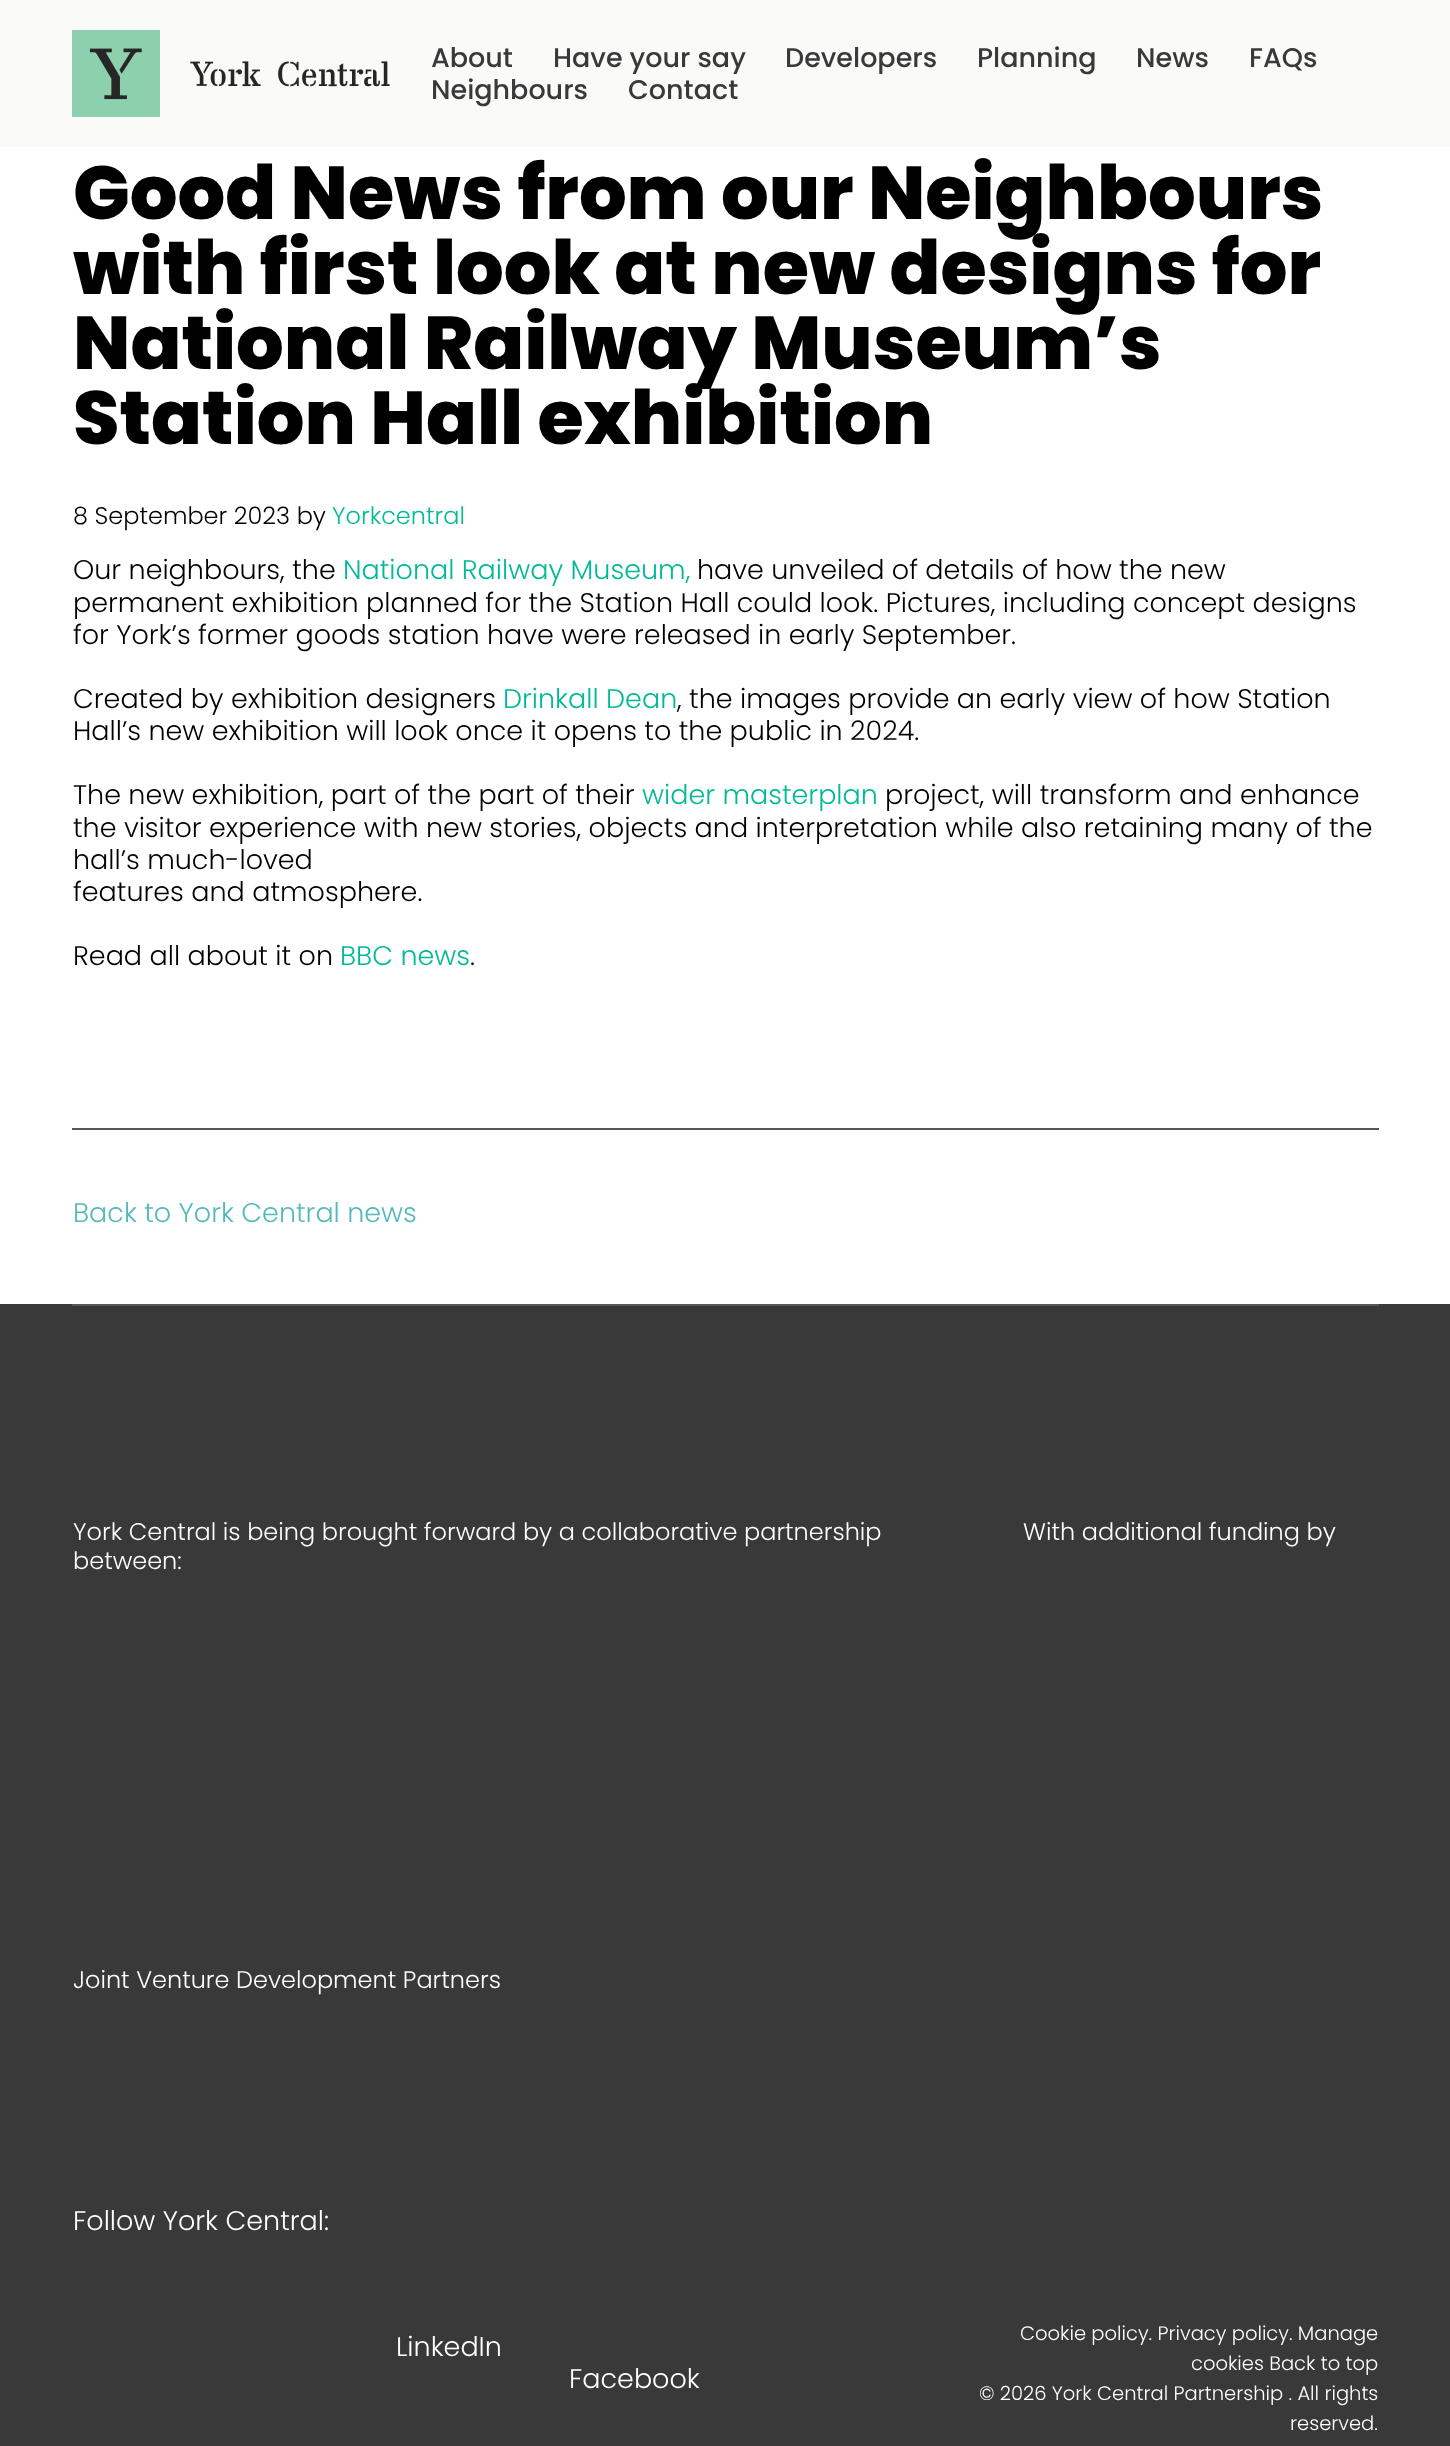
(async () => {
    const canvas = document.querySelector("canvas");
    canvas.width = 1450;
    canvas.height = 2446;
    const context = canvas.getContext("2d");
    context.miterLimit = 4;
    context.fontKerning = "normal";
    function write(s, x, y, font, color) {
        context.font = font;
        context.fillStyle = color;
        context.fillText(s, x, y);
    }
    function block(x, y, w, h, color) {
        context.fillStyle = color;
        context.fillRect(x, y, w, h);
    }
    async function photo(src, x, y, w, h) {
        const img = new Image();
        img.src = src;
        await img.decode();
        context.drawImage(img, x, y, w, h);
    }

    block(0, 0, 1450, 2446, "rgb(255, 255, 255)");
    block(0, 0, 1450, 147, "rgb(250, 250, 248)");
    await photo("media/1.png", 72, 30, 318, 87);
    write("About", 431, 67, "500 27px Poppins", "rgb(57, 57, 57)");
    write("Have your say", 553, 67, "500 27px Poppins", "rgb(57, 57, 57)");
    write("Developers", 785, 67, "500 27px Poppins", "rgb(57, 57, 57)");
    write("Planning", 977, 67, "500 27px Poppins", "rgb(57, 57, 57)");
    write("News", 1136, 67, "500 27px Poppins", "rgb(57, 57, 57)");
    write("FAQs", 1249, 67, "500 27px Poppins", "rgb(57, 57, 57)");
    write("Neighbours", 431, 99, "500 27px Poppins", "rgb(57, 57, 57)");
    write("Contact", 628, 99, "500 27px Poppins", "rgb(57, 57, 57)");
    write("Good News from our Neighbours", 73, 219, "800 75px Poppins", "rgb(0, 0, 0)");
    write("with first look at new designs for", 73, 294, "800 75px Poppins", "rgb(0, 0, 0)");
    write("National Railway Museum’s", 73, 369, "800 75px Poppins", "rgb(0, 0, 0)");
    write("Station Hall exhibition", 73, 444, "800 75px Poppins", "rgb(0, 0, 0)");
    write("8 September 2023 by", 73, 524, "300 24px Poppins", "rgb(0, 0, 0)");
    write("Yorkcentral", 332, 524, "300 24px Poppins", "rgb(1, 186, 152)");
    write("Our neighbours, the", 73, 579, "300 27px Poppins", "rgb(0, 0, 0)");
    write("National Railway Museum,", 343, 579, "300 27px Poppins", "rgb(1, 186, 152)");
    write("have unveiled of details of how the new", 697, 579, "300 27px Poppins", "rgb(0, 0, 0)");
    write("permanent exhibition planned for the Station Hall could look. Pictures, including concept designs", 73, 612, "300 27px Poppins", "rgb(0, 0, 0)");
    write("for York’s former goods station have were released in early September.", 73, 644, "300 27px Poppins", "rgb(0, 0, 0)");
    write("Created by exhibition designers", 73, 708, "300 27px Poppins", "rgb(0, 0, 0)");
    write("Drinkall Dean", 503, 708, "300 27px Poppins", "rgb(1, 186, 152)");
    write(", the images provide an early view of how Station", 677, 708, "300 27px Poppins", "rgb(0, 0, 0)");
    write("Hall’s new exhibition will look once it opens to the public in 2024.", 73, 740, "300 27px Poppins", "rgb(0, 0, 0)");
    write("The new exhibition, part of the part of their", 73, 804, "300 27px Poppins", "rgb(0, 0, 0)");
    write("wider masterplan", 642, 804, "300 27px Poppins", "rgb(1, 186, 152)");
    write("project, will transform and enhance", 885, 804, "300 27px Poppins", "rgb(0, 0, 0)");
    write("the visitor experience with new stories, objects and interpretation while also retaining many of the", 73, 837, "300 27px Poppins", "rgb(0, 0, 0)");
    write("hall’s much-loved", 73, 869, "300 27px Poppins", "rgb(0, 0, 0)");
    write("features and atmosphere.", 73, 901, "300 27px Poppins", "rgb(0, 0, 0)");
    write("Read all about it on", 73, 965, "300 27px Poppins", "rgb(0, 0, 0)");
    write("BBC news", 340, 965, "300 27px Poppins", "rgb(1, 186, 152)");
    write(".", 470, 965, "300 27px Poppins", "rgb(0, 0, 0)");
    block(72, 1128, 1307, 2, "rgb(89, 86, 87)");
    write("Back to York Central news", 73, 1222, "300 27px Poppins", "rgb(85, 185, 188)");
    block(0, 1304, 1450, 1142, "rgb(57, 57, 57)");
    block(72, 1304, 1307, 2, "rgb(89, 86, 87)");
    write("York Central is being brought forward by a collaborative partnership", 73, 1540, "300 24px Poppins", "rgb(255, 255, 255)");
    write("between:", 73, 1569, "300 24px Poppins", "rgb(255, 255, 255)");
    write("With additional funding by", 1023, 1540, "300 24px Poppins", "rgb(255, 255, 255)");
    write("Joint Venture Development Partners", 73, 1988, "300 24px Poppins", "rgb(255, 255, 255)");
    write("Follow York Central:", 73, 2230, "300 27px Poppins", "rgb(255, 255, 255)");
    write("LinkedIn", 396, 2356, "300 27px Poppins", "rgb(255, 255, 255)");
    write("Facebook", 569, 2388, "300 27px Poppins", "rgb(255, 255, 255)");
    write("Cookie policy. Privacy policy. Manage", 1020, 2340, "300 19.5px Poppins", "rgb(255, 255, 255)");
    write("cookies Back to top", 1191, 2370, "300 19.5px Poppins", "rgb(255, 255, 255)");
    write("© 2026 York Central Partnership . All rights", 979, 2400, "300 19.5px Poppins", "rgb(255, 255, 255)");
    write("reserved.", 1290, 2430, "300 19.5px Poppins", "rgb(255, 255, 255)");
})();
